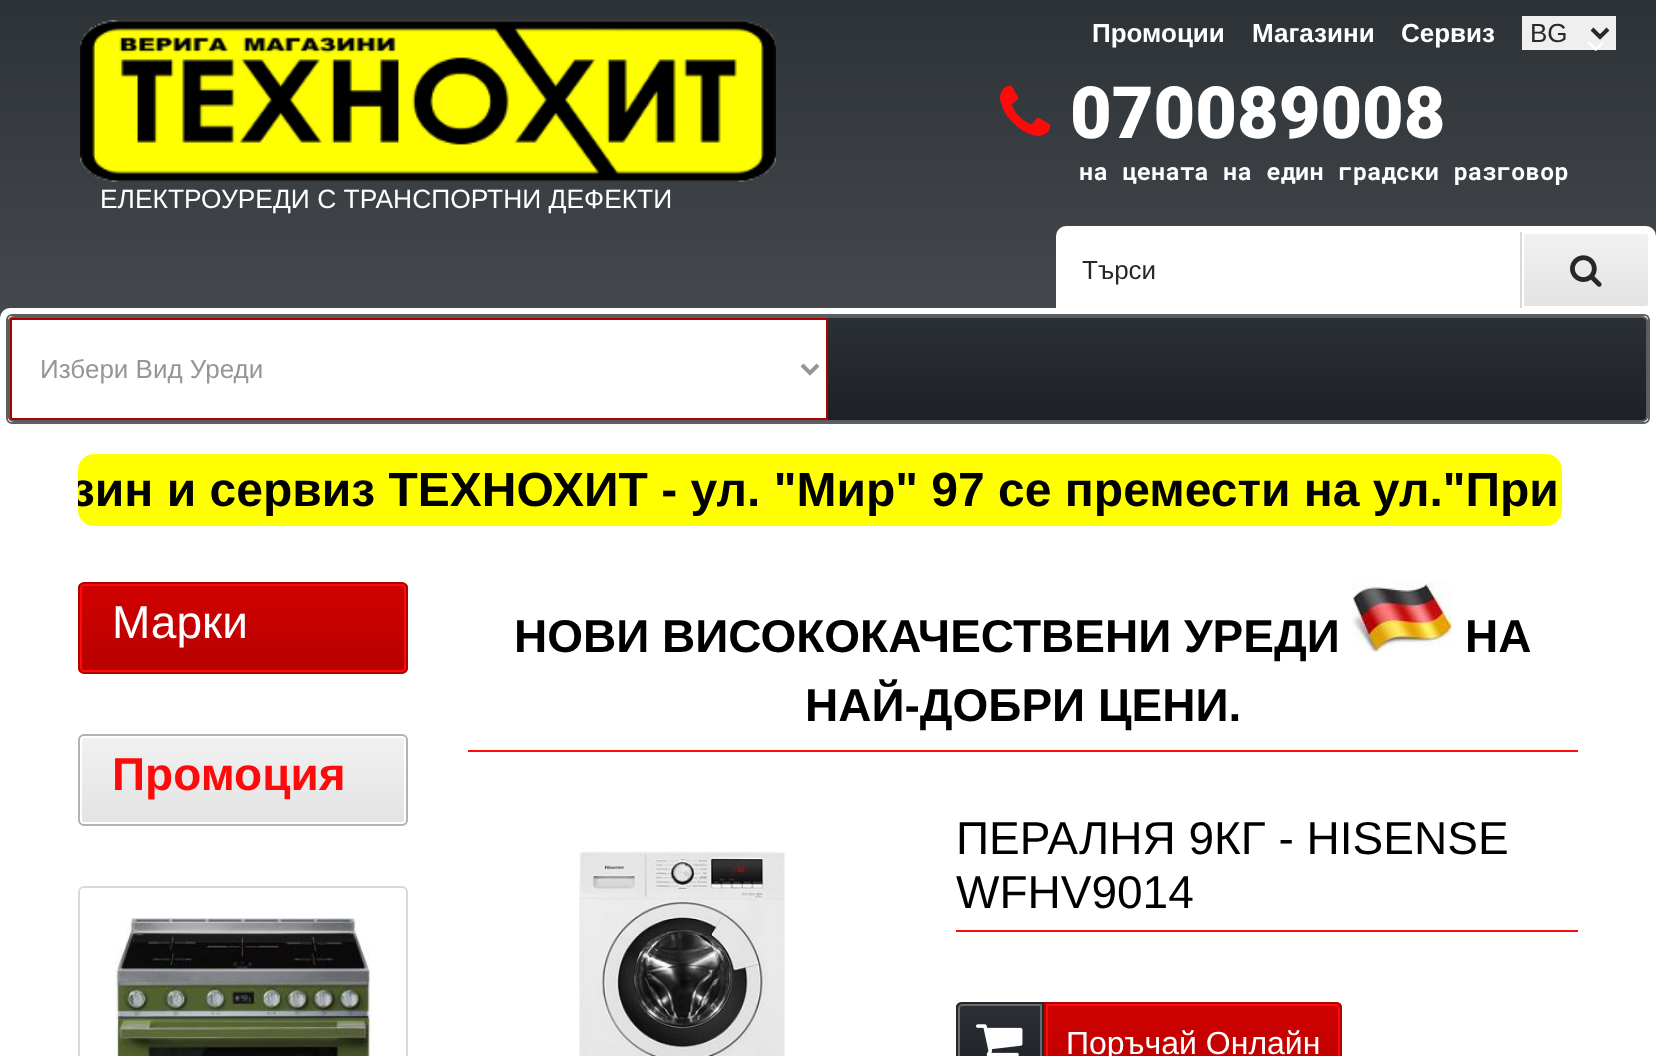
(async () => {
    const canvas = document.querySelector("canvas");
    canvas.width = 1656;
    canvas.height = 1056;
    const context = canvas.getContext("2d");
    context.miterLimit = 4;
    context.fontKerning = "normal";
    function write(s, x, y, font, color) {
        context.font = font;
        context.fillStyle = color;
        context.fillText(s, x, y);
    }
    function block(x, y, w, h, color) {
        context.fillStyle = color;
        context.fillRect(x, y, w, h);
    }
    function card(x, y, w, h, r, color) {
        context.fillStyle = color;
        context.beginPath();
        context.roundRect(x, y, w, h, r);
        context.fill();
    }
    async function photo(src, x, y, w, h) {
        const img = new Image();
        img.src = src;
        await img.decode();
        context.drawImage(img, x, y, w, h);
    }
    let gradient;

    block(0, 0, 1656, 1056, "rgb(255, 255, 255)");
    gradient = context.createLinearGradient(828, 0, 828, 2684);
    gradient.addColorStop(0, "rgb(45, 50, 55)");
    gradient.addColorStop(1, "rgb(243, 243, 243)");
    context.fillStyle = gradient;
    context.fillRect(0, 0, 1656, 318);
    write("Промоции", 1092, 42, "bold 26px Liberation Sans", "rgb(255, 255, 255)");
    write("Магазини", 1252, 42, "bold 26px Liberation Sans", "rgb(255, 255, 255)");
    write("Сервиз", 1401, 42, "bold 26px Liberation Sans", "rgb(255, 255, 255)");
    block(1522, 16, 94, 34, "rgb(239, 239, 239)");
    context.beginPath();
    context.moveTo(1592, 29);
    context.lineTo(1600, 37);
    context.lineTo(1608, 29);
    context.strokeStyle = "rgb(40, 40, 40)";
    context.lineWidth = 4;
    context.stroke();
    write("BG", 1530, 42, "26px Liberation Sans", "rgb(40, 40, 40)");
    await photo("media/1.png", 1587, 41, 17, 10);
    await photo("media/2.png", 80, 20, 696, 162);
    write("ЕЛЕКТРОУРЕДИ С ТРАНСПОРТНИ ДЕФЕКТИ", 100, 208, "26.4px Liberation Sans", "rgb(255, 255, 255)");
    await photo("media/3.png", 1000, 85, 51, 51);
    write("070089008", 1070, 138, "900 72px Roboto", "rgb(255, 255, 255)");
    write("на цената на един градски разговор", 1079, 180, "bold 24px Roboto Mono", "rgb(255, 255, 255)");
    context.beginPath();
    context.roundRect(1056, 226, 600, 82, [10, 10, 0, 0]);
    context.fill();
    block(1520, 232, 2, 76, "rgb(217, 217, 217)");
    write("Търси", 1082, 279, "26px Liberation Sans", "rgb(40, 40, 40)");
    gradient = context.createLinearGradient(1586, 234, 1586, 306);
    gradient.addColorStop(0, "rgb(241, 241, 241)");
    gradient.addColorStop(1, "rgb(227, 227, 227)");
    context.fillStyle = gradient;
    context.fillRect(1524, 234, 126, 72);
    context.beginPath();
    context.roundRect(1523, 233, 126, 74, [0, 3, 3, 0]);
    context.strokeStyle = "rgb(255, 255, 255)";
    context.lineWidth = 2;
    context.stroke();
    await photo("media/4.png", 1570, 255, 32, 32);
    context.fillStyle = "rgb(255, 255, 255)";
    context.beginPath();
    context.roundRect(0, 308, 1656, 116, [10, 0, 0, 0]);
    context.fill();
    context.beginPath();
    context.roundRect(7, 315, 1642, 108, 5);
    context.strokeStyle = "rgb(93, 96, 98)";
    context.stroke();
    context.save();
    context.beginPath();
    context.roundRect(8, 316, 1640, 106, 6);
    context.clip();
    gradient = context.createLinearGradient(828, 318, 828, 420);
    gradient.addColorStop(0, "rgb(43, 48, 53)");
    gradient.addColorStop(1, "rgb(29, 32, 36)");
    context.fillStyle = gradient;
    context.fillRect(8, 318, 1640, 102);
    context.restore();
    context.beginPath();
    context.roundRect(9, 317, 1638, 104, 5);
    context.strokeStyle = "rgb(90, 93, 95)";
    context.stroke();
    block(10, 318, 818, 102, "rgb(174, 2, 1)");
    block(12, 320, 814, 98, "rgb(255, 255, 255)");
    context.beginPath();
    context.moveTo(802, 365);
    context.lineTo(810, 373);
    context.lineTo(818, 365);
    context.strokeStyle = "rgb(150, 150, 150)";
    context.lineWidth = 4;
    context.stroke();
    write("Избери Вид Уреди", 40, 378, "26px Liberation Sans", "rgb(150, 150, 150)");
    card(78, 454, 1484, 72, 16, "rgb(255, 255, 0)");
    context.save();
    context.beginPath();
    context.roundRect(78, 454, 1484, 72, 16);
    context.clip();
    write("зин и сервиз ТЕХНОХИТ - ул. \"Мир\" 97 се премести на ул.\"При", 71, 506, "bold 48px Liberation Sans", "rgb(0, 0, 0)");
    context.restore();
    context.save();
    context.beginPath();
    context.roundRect(78, 582, 330, 92, 6);
    context.clip();
    gradient = context.createLinearGradient(243, 584, 243, 672);
    gradient.addColorStop(0, "rgb(209, 1, 0)");
    gradient.addColorStop(1, "rgb(183, 1, 0)");
    context.fillStyle = gradient;
    context.fillRect(78, 584, 330, 88);
    context.restore();
    context.beginPath();
    context.roundRect(81, 585, 324, 86, 3);
    context.strokeStyle = "rgb(253, 11, 10)";
    context.lineWidth = 2;
    context.stroke();
    context.beginPath();
    context.roundRect(79, 583, 328, 90, 5);
    context.strokeStyle = "rgb(174, 2, 1)";
    context.stroke();
    write("Марки", 112, 638, "46px Liberation Sans", "rgb(255, 255, 255)");
    context.save();
    context.beginPath();
    context.roundRect(78, 734, 330, 92, 6);
    context.clip();
    gradient = context.createLinearGradient(243, 736, 243, 824);
    gradient.addColorStop(0, "rgb(241, 241, 241)");
    gradient.addColorStop(1, "rgb(227, 227, 227)");
    context.fillStyle = gradient;
    context.fillRect(78, 736, 330, 88);
    context.restore();
    context.beginPath();
    context.roundRect(81, 737, 324, 86, 3);
    context.strokeStyle = "rgb(255, 255, 255)";
    context.stroke();
    context.beginPath();
    context.roundRect(79, 735, 328, 90, 5);
    context.strokeStyle = "rgb(179, 179, 179)";
    context.stroke();
    write("Промоция", 112, 790, "bold 46px Liberation Sans", "rgb(253, 11, 10)");
    context.beginPath();
    context.roundRect(79, 887, 328, 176, 5);
    context.strokeStyle = "rgb(217, 217, 217)";
    context.stroke();
    await photo("media/5.png", 115, 918, 257, 138);
    block(468, 750, 1110, 2, "rgb(253, 11, 10)");
    write("НОВИ ВИСОКОКАЧЕСТВЕНИ УРЕДИ", 514, 652, "bold 46px Liberation Sans", "rgb(0, 0, 0)");
    await photo("media/6.png", 1352, 582, 100, 70);
    write("НА", 1465, 652, "bold 46px Liberation Sans", "rgb(0, 0, 0)");
    write("НАЙ-ДОБРИ ЦЕНИ.", 805, 721, "bold 46px Liberation Sans", "rgb(0, 0, 0)");
    await photo("media/7.png", 579, 851, 206, 205);
    block(956, 930, 622, 2, "rgb(253, 11, 10)");
    write("ПЕРАЛНЯ 9КГ - HISENSE", 956, 854, "46px Liberation Sans", "rgb(0, 0, 0)");
    write("WFHV9014", 956, 908, "46px Liberation Sans", "rgb(0, 0, 0)");
    gradient = context.createLinearGradient(1149, 1002, 1149, 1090);
    gradient.addColorStop(0, "rgb(209, 1, 0)");
    gradient.addColorStop(1, "rgb(183, 1, 0)");
    context.fillStyle = gradient;
    context.beginPath();
    context.roundRect(956, 1002, 386, 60, 6);
    context.fill();
    context.save();
    context.beginPath();
    context.moveTo(962, 1002);
    context.lineTo(1044, 1002);
    context.lineTo(1044, 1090);
    context.lineTo(962, 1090);
    context.bezierCurveTo(958.5, 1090, 956, 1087.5, 956, 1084);
    context.lineTo(956, 1008);
    context.bezierCurveTo(956, 1004.5, 958.5, 1002, 962, 1002);
    context.closePath();
    context.clip();
    gradient = context.createLinearGradient(1000, 1004, 1000, 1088);
    gradient.addColorStop(0, "rgb(43, 48, 53)");
    gradient.addColorStop(1, "rgb(29, 32, 36)");
    context.fillStyle = gradient;
    context.fillRect(956, 1004, 84, 52);
    context.restore();
    context.beginPath();
    context.moveTo(962, 1005);
    context.lineTo(1041, 1005);
    context.lineTo(1041, 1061);
    context.lineTo(962, 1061);
    context.bezierCurveTo(960.5, 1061, 959, 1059.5, 959, 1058);
    context.lineTo(959, 1008);
    context.bezierCurveTo(959, 1006.5, 960.5, 1005, 962, 1005);
    context.closePath();
    context.strokeStyle = "rgb(103, 107, 111)";
    context.stroke();
    context.beginPath();
    context.moveTo(962, 1003);
    context.lineTo(1043, 1003);
    context.lineTo(1043, 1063);
    context.lineTo(962, 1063);
    context.bezierCurveTo(959, 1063, 957, 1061, 957, 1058);
    context.lineTo(957, 1008);
    context.bezierCurveTo(957, 1005, 959, 1003, 962, 1003);
    context.closePath();
    context.strokeStyle = "rgb(40, 40, 40)";
    context.stroke();
    await photo("media/8.png", 976, 1024, 47, 32);
    context.beginPath();
    context.moveTo(1047, 1005);
    context.lineTo(1336, 1005);
    context.bezierCurveTo(1337.5, 1005, 1339, 1006.5, 1339, 1008);
    context.lineTo(1339, 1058);
    context.bezierCurveTo(1339, 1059.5, 1337.5, 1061, 1336, 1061);
    context.lineTo(1047, 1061);
    context.closePath();
    context.strokeStyle = "rgb(253, 11, 10)";
    context.stroke();
    context.beginPath();
    context.moveTo(1045, 1003);
    context.lineTo(1336, 1003);
    context.bezierCurveTo(1339, 1003, 1341, 1005, 1341, 1008);
    context.lineTo(1341, 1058);
    context.bezierCurveTo(1341, 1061, 1339, 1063, 1336, 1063);
    context.lineTo(1045, 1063);
    context.closePath();
    context.strokeStyle = "rgb(174, 2, 1)";
    context.stroke();
    write("Поръчай Онлайн", 1066, 1054, "32px Liberation Sans", "rgb(255, 255, 255)");
})();
